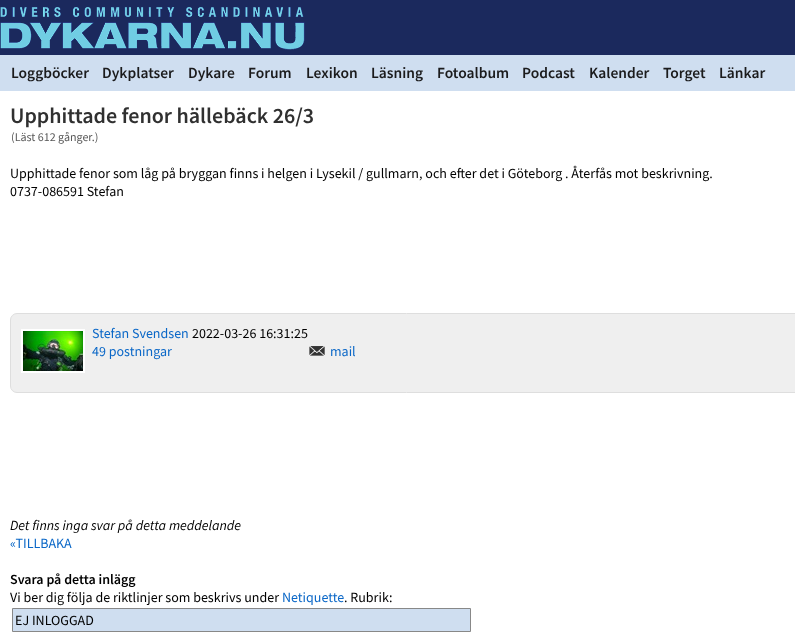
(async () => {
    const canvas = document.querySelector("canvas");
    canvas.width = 795;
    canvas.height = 635;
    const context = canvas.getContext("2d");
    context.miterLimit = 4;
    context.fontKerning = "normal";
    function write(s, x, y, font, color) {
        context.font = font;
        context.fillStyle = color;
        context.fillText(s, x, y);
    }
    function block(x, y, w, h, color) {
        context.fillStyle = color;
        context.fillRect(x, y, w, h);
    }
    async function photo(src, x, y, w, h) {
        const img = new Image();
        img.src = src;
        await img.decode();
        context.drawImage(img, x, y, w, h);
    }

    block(0, 0, 795, 635, "rgb(27, 41, 93)");
    await photo("media/1.png", 0, 7, 305, 43);
    block(0, 55, 795, 36, "rgb(207, 222, 240)");
    write("Loggböcker", 11, 78, "600 15.5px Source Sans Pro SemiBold", "rgb(27, 27, 28)");
    write("Dykplatser", 102, 78, "600 15.5px Source Sans Pro SemiBold", "rgb(27, 27, 28)");
    write("Dykare", 188, 78, "600 15.5px Source Sans Pro SemiBold", "rgb(27, 27, 28)");
    write("Forum", 248, 78, "600 15.5px Source Sans Pro SemiBold", "rgb(27, 27, 28)");
    write("Lexikon", 306, 78, "600 15.5px Source Sans Pro SemiBold", "rgb(27, 27, 28)");
    write("Läsning", 371, 78, "600 15.5px Source Sans Pro SemiBold", "rgb(27, 27, 28)");
    write("Fotoalbum", 437, 78, "600 15.5px Source Sans Pro SemiBold", "rgb(27, 27, 28)");
    write("Podcast", 522, 78, "600 15.5px Source Sans Pro SemiBold", "rgb(27, 27, 28)");
    write("Kalender", 589, 78, "600 15.5px Source Sans Pro SemiBold", "rgb(27, 27, 28)");
    write("Torget", 663, 78, "600 15.5px Source Sans Pro SemiBold", "rgb(27, 27, 28)");
    write("Länkar", 719, 78, "600 15.5px Source Sans Pro SemiBold", "rgb(27, 27, 28)");
    block(0, 91, 795, 544, "rgb(255, 255, 255)");
    write("Upphittade fenor hällebäck 26/3", 10, 123, "600 22px Source Sans Pro SemiBold", "rgb(48, 48, 48)");
    write("(Läst 612 gånger.)", 11, 141, "12px Source Sans Pro", "rgb(88, 88, 88)");
    write("Upphittade fenor som låg på bryggan finns i helgen i Lysekil / gullmarn, och efter det i Göteborg . Återfås mot beskrivning.", 10, 178, "14px Source Sans Pro", "rgb(0, 0, 0)");
    write("0737-086591 Stefan", 10, 196, "14px Source Sans Pro", "rgb(0, 0, 0)");
    context.fillStyle = "rgb(239, 239, 239)";
    context.beginPath();
    context.roundRect(10.5, 313.5, 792, 79, 6.5);
    context.fill();
    context.strokeStyle = "rgb(222, 222, 222)";
    context.stroke();
    block(21, 329, 64, 44, "rgb(255, 255, 255)");
    await photo("media/2.png", 23, 331, 60, 40);
    write("Stefan Svendsen", 92, 338, "14px Source Sans Pro", "rgb(10, 103, 199)");
    write("2022-03-26 16:31:25", 192, 338, "14px Source Sans Pro", "rgb(0, 0, 0)");
    write("49 postningar", 92, 356, "14px Source Sans Pro", "rgb(10, 103, 199)");
    await photo("media/3.png", 309, 346, 16, 10);
    write("mail", 330, 356, "14px Source Sans Pro", "rgb(10, 103, 199)");
    write("Det finns inga svar på detta meddelande", 10, 530, "italic 14px Source Sans Pro", "rgb(0, 0, 0)");
    write("«TILLBAKA", 10, 548, "14px Source Sans Pro", "rgb(10, 103, 199)");
    write("Svara på detta inlägg", 10, 584, "600 14px Source Sans Pro SemiBold", "rgb(0, 0, 0)");
    write("Vi ber dig följa de riktlinjer som beskrivs under", 10, 602, "14px Source Sans Pro", "rgb(0, 0, 0)");
    write("Netiquette", 282, 602, "14px Source Sans Pro", "rgb(10, 103, 199)");
    write(". Rubrik:", 344, 602, "14px Source Sans Pro", "rgb(0, 0, 0)");
    context.fillStyle = "rgb(207, 222, 240)";
    context.beginPath();
    context.rect(12.5, 608.5, 458, 23);
    context.fill();
    context.strokeStyle = "rgb(136, 136, 136)";
    context.stroke();
    write("EJ INLOGGAD", 15, 625, "14px Source Sans Pro", "rgb(0, 0, 0)");
})();
